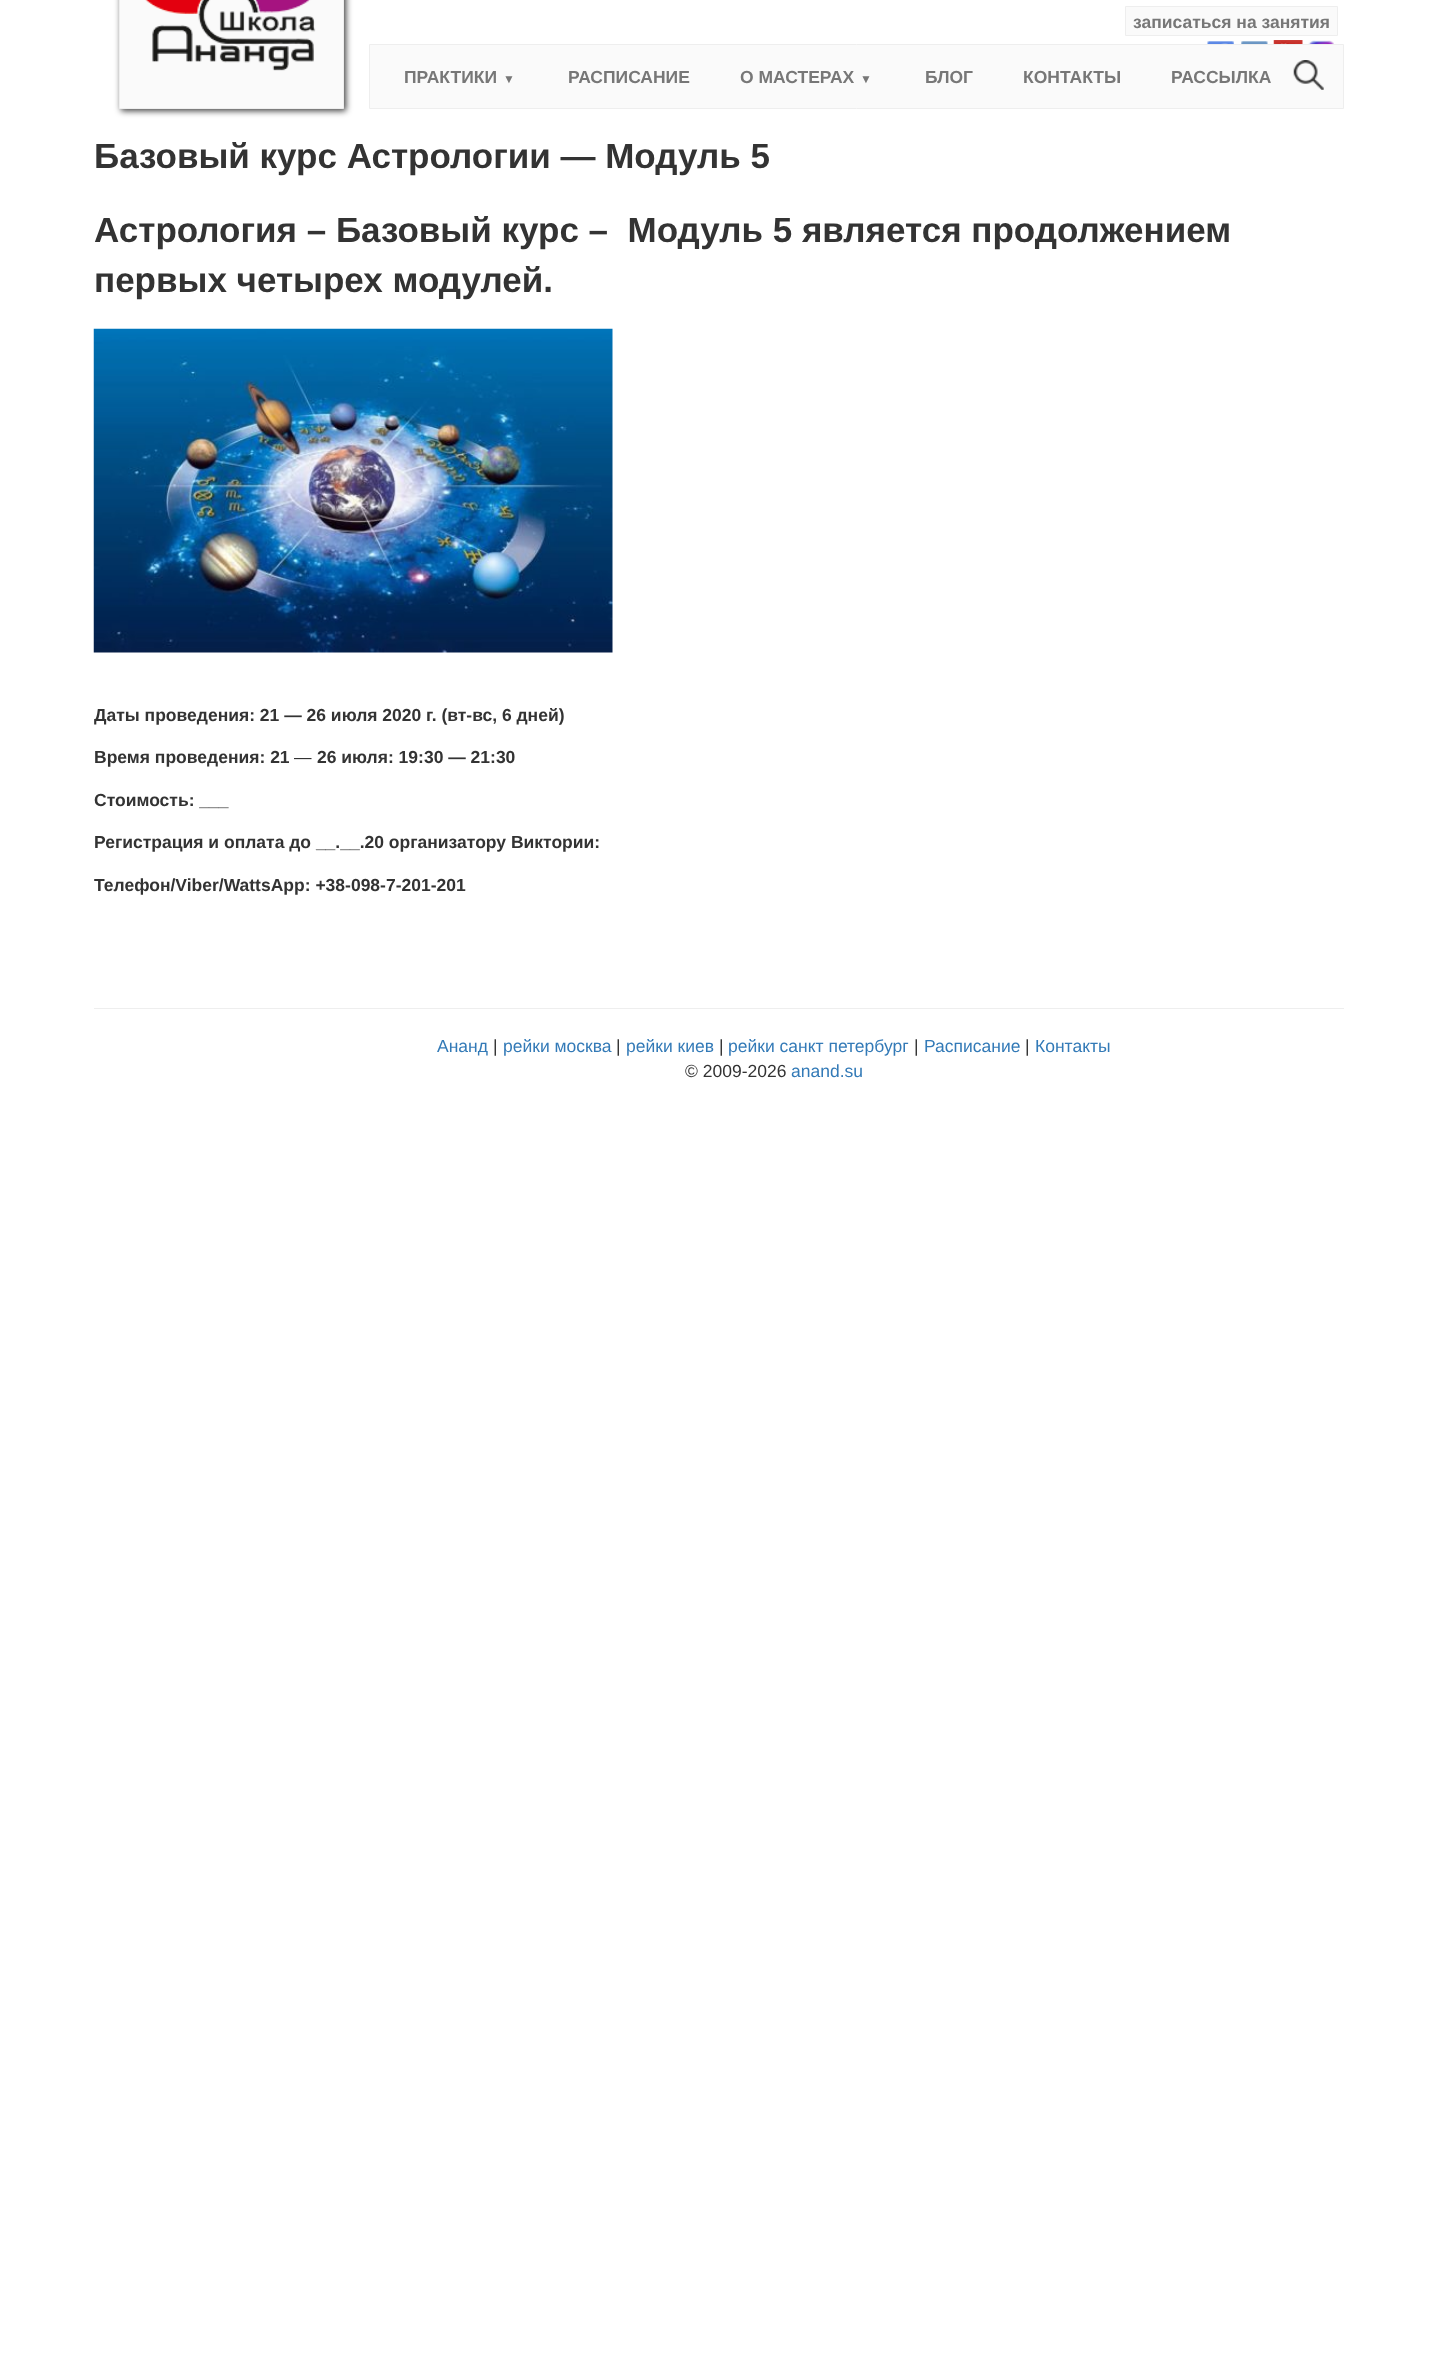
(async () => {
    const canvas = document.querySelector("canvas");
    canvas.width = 1437;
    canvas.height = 2356;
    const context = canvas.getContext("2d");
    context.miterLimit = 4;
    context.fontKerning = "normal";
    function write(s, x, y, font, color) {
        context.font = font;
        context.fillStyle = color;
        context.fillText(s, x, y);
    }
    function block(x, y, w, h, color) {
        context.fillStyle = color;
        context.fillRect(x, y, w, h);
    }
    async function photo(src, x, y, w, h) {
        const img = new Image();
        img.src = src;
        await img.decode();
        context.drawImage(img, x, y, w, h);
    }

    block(0, 0, 1437, 2356, "rgb(255, 255, 255)");
    context.fillStyle = "rgba(0, 0, 0, 0.75)";
    context.filter = "blur(3px)";
    context.beginPath();
    context.rect(121, -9, 225, 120);
    context.fill();
    context.filter = "none";
    context.fillStyle = "rgb(250, 250, 250)";
    context.beginPath();
    context.rect(119.5, -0.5, 224, 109);
    context.fill();
    context.strokeStyle = "rgb(238, 238, 238)";
    context.stroke();
    await photo("media/1.png", 145, 0, 171, 71);
    context.beginPath();
    context.rect(1125.5, 6.5, 212, 29);
    context.fill();
    context.stroke();
    write("записаться на занятия", 1133, 28, "bold 17.5px Liberation Sans", "rgb(119, 119, 119)");
    await photo("media/2.png", 1207, 41, 27, 3);
    await photo("media/3.png", 1241, 41, 27, 3);
    await photo("media/4.png", 1273, 40, 30, 4);
    await photo("media/5.png", 1308, 40, 26, 4);
    context.fillStyle = "rgb(250, 250, 250)";
    context.beginPath();
    context.rect(369.5, 44.5, 974, 64);
    context.fill();
    context.stroke();
    write("ПРАКТИКИ", 404, 83, "bold 17.5px Liberation Sans", "rgb(119, 119, 119)");
    write("▼", 503, 83, "bold 12px Liberation Sans", "rgb(119, 119, 119)");
    write("РАСПИСАНИЕ", 568, 83, "bold 17.5px Liberation Sans", "rgb(119, 119, 119)");
    write("О МАСТЕРАХ", 740, 83, "bold 17.5px Liberation Sans", "rgb(119, 119, 119)");
    write("▼", 860, 83, "bold 12px Liberation Sans", "rgb(119, 119, 119)");
    write("БЛОГ", 925, 83, "bold 17.5px Liberation Sans", "rgb(119, 119, 119)");
    write("КОНТАКТЫ", 1023, 83, "bold 17.5px Liberation Sans", "rgb(119, 119, 119)");
    write("РАССЫЛКА", 1171, 83, "bold 17.5px Liberation Sans", "rgb(119, 119, 119)");
    await photo("media/6.png", 1293, 60, 31, 30);
    write("Базовый курс Астрологии — Модуль 5", 94, 168, "bold 35px Liberation Sans", "rgb(51, 51, 51)");
    write("Астрология – Базовый курс –  Модуль 5 является продолжением", 94, 242, "bold 35px Liberation Sans", "rgb(51, 51, 51)");
    write("первых четырех модулей.", 94, 292, "bold 35px Liberation Sans", "rgb(51, 51, 51)");
    await photo("media/7.png", 93, 328, 520, 325);
    write("Даты проведения: 21 — 26 июля 2020 г. (вт-вс, 6 дней)", 94, 721, "bold 17.5px Liberation Sans", "rgb(51, 51, 51)");
    write("Время проведения: 21", 94, 763, "bold 17.5px Liberation Sans", "rgb(51, 51, 51)");
    write("—", 294, 763, "17.5px Liberation Sans", "rgb(51, 51, 51)");
    write("26 июля: 19:30 — 21:30", 317, 763, "bold 17.5px Liberation Sans", "rgb(51, 51, 51)");
    write("Стоимость: ___", 94, 806, "bold 17.5px Liberation Sans", "rgb(51, 51, 51)");
    write("Регистрация и оплата до __.__.20 организатору Виктории:", 94, 848, "bold 17.5px Liberation Sans", "rgb(51, 51, 51)");
    write("Телефон/Viber/WattsApp: +38-098-7-201-201", 94, 891, "bold 17.5px Liberation Sans", "rgb(51, 51, 51)");
    block(94, 1008, 1250, 1, "rgb(238, 238, 238)");
    write("Ананд", 437, 1052, "17.5px Liberation Sans", "rgb(51, 122, 183)");
    write("|", 493, 1052, "17.5px Liberation Sans", "rgb(51, 51, 51)");
    write("рейки москва", 503, 1052, "17.5px Liberation Sans", "rgb(51, 122, 183)");
    write("|", 616, 1052, "17.5px Liberation Sans", "rgb(51, 51, 51)");
    write("рейки киев", 626, 1052, "17.5px Liberation Sans", "rgb(51, 122, 183)");
    write("|", 719, 1052, "17.5px Liberation Sans", "rgb(51, 51, 51)");
    write("рейки санкт петербург", 728, 1052, "17.5px Liberation Sans", "rgb(51, 122, 183)");
    write("|", 914, 1052, "17.5px Liberation Sans", "rgb(51, 51, 51)");
    write("Расписание", 924, 1052, "17.5px Liberation Sans", "rgb(51, 122, 183)");
    write("|", 1025, 1052, "17.5px Liberation Sans", "rgb(51, 51, 51)");
    write("Контакты", 1035, 1052, "17.5px Liberation Sans", "rgb(51, 122, 183)");
    write("© 2009-2026", 685, 1077, "17.5px Liberation Sans", "rgb(51, 51, 51)");
    write("anand.su", 791, 1077, "17.5px Liberation Sans", "rgb(51, 122, 183)");
})();
